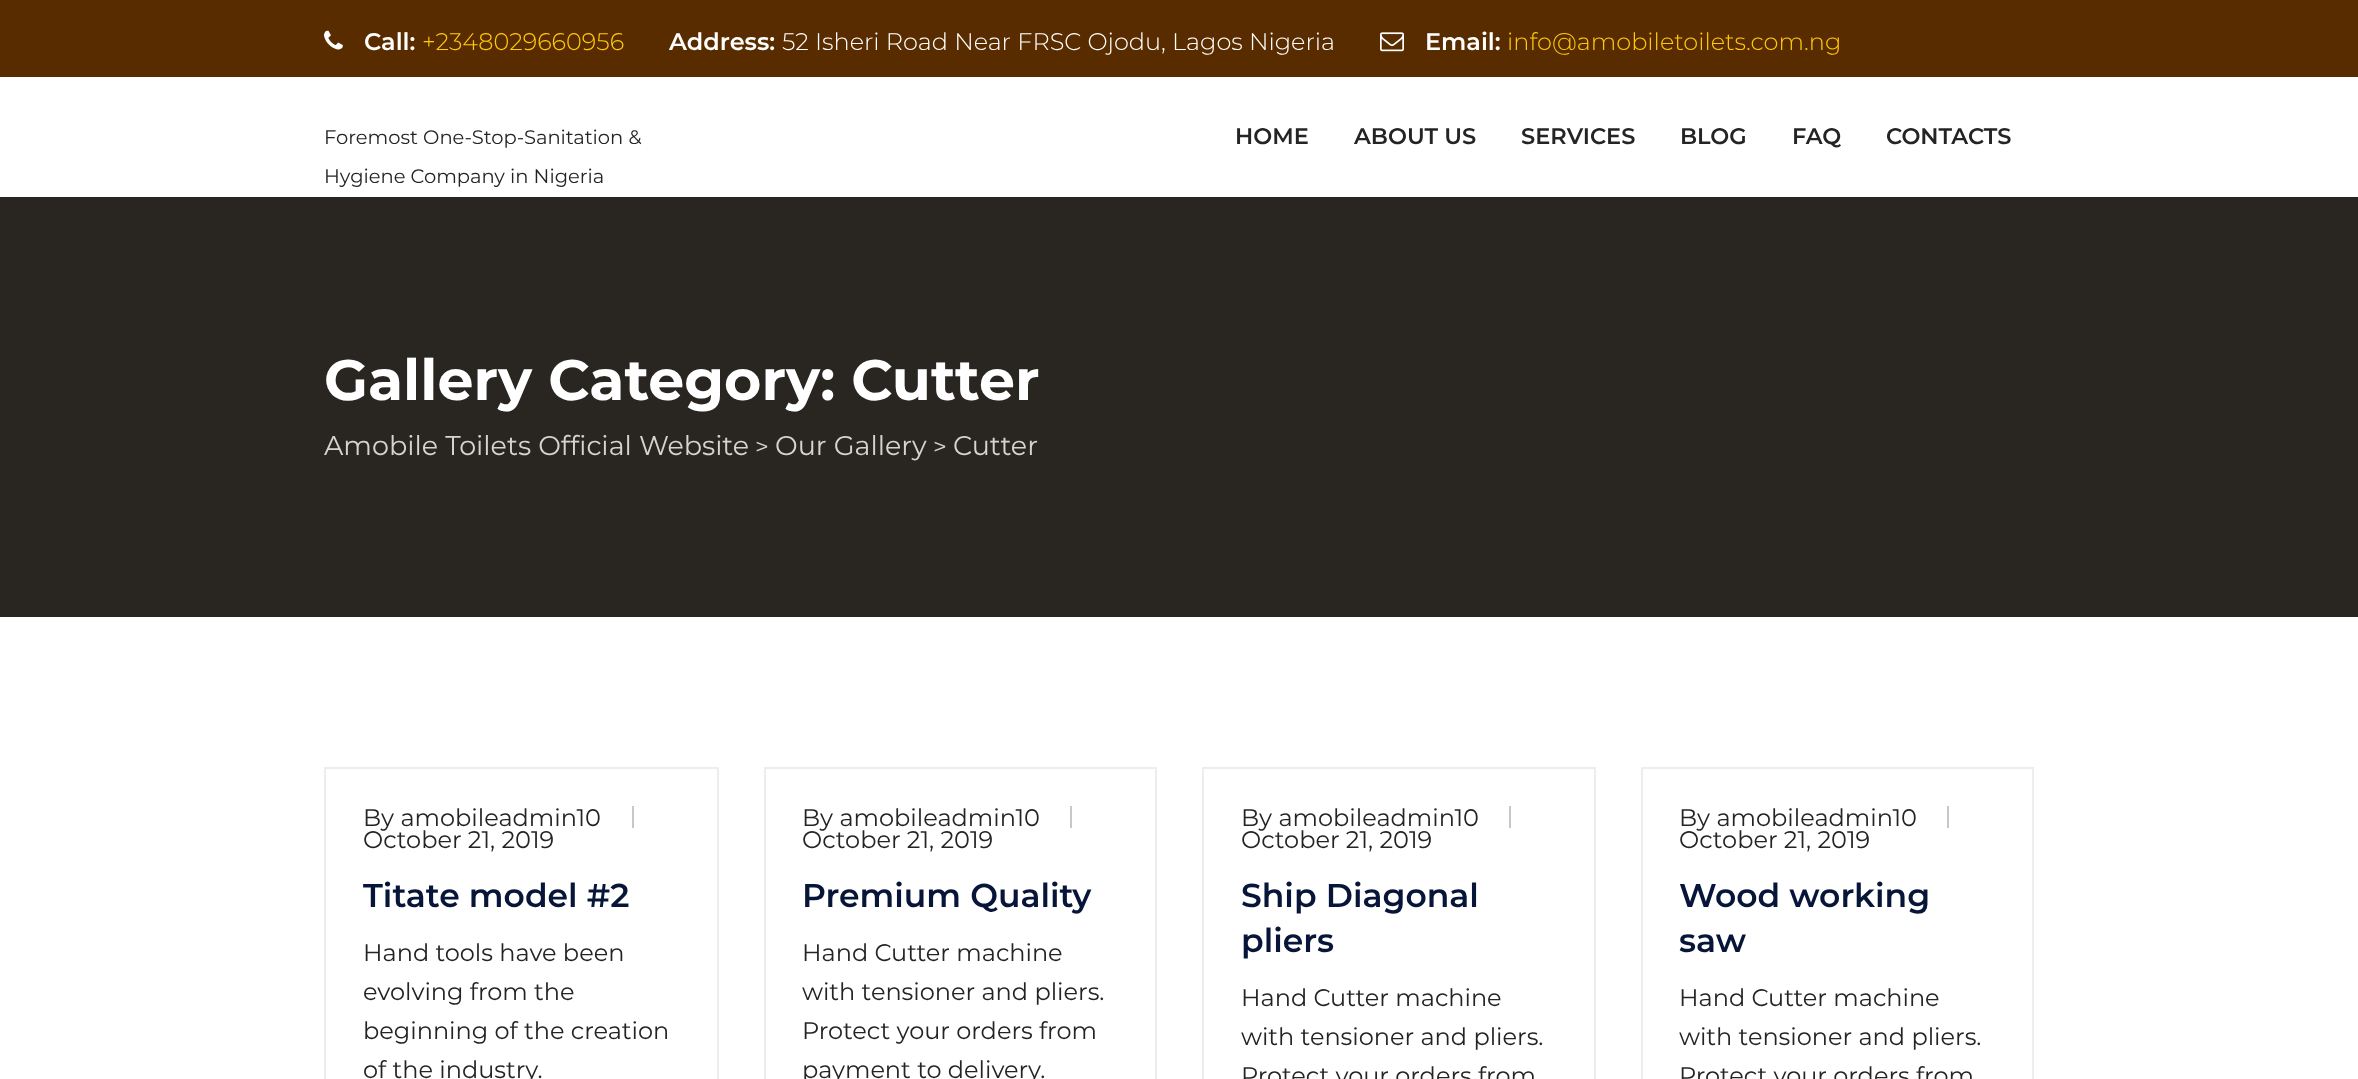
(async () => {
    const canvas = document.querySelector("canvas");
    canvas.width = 2358;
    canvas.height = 1079;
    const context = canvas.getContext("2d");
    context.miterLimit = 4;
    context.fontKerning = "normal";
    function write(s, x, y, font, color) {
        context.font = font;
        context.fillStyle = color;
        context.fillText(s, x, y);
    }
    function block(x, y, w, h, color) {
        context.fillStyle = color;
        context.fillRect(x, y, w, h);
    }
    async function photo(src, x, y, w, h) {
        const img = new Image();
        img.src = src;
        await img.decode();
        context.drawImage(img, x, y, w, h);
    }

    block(0, 0, 2358, 1079, "rgb(255, 255, 255)");
    block(0, 0, 2358, 77, "rgb(89, 44, 0)");
    await photo("media/1.png", 324, 30, 19, 20);
    write("Call:", 364, 50, "600 24px Montserrat", "rgb(255, 255, 255)");
    write("+2348029660956", 422, 50, "300 24px Montserrat", "rgb(255, 202, 11)");
    write("Address:", 669, 50, "600 24px Montserrat", "rgb(255, 255, 255)");
    write("52 Isheri Road Near FRSC Ojodu, Lagos Nigeria", 782, 50, "300 24px Montserrat", "rgb(255, 255, 255)");
    await photo("media/2.png", 1380, 32, 24, 20);
    write("Email:", 1425, 50, "600 24px Montserrat", "rgb(255, 255, 255)");
    write("info@amobiletoilets.com.ng", 1507, 50, "300 24px Montserrat", "rgb(255, 202, 11)");
    write("Foremost One-Stop-Sanitation &", 324, 144, "19.5px Montserrat", "rgb(36, 36, 36)");
    write("Hygiene Company in Nigeria", 324, 183, "19.5px Montserrat", "rgb(36, 36, 36)");
    write("HOME", 1235, 144, "600 22.5px Montserrat", "rgb(36, 36, 36)");
    write("ABOUT US", 1354, 144, "600 22.5px Montserrat", "rgb(36, 36, 36)");
    write("SERVICES", 1521, 144, "600 22.5px Montserrat", "rgb(36, 36, 36)");
    write("BLOG", 1680, 144, "600 22.5px Montserrat", "rgb(36, 36, 36)");
    write("FAQ", 1792, 144, "600 22.5px Montserrat", "rgb(36, 36, 36)");
    write("CONTACTS", 1886, 144, "600 22.5px Montserrat", "rgb(36, 36, 36)");
    block(0, 197, 2358, 420, "rgb(41, 37, 32)");
    write("Gallery Category: Cutter", 324, 400, "bold 57px Montserrat", "rgb(255, 255, 255)");
    write("Amobile Toilets Official Website", 324, 455, "27px Montserrat", "rgb(212, 212, 212)");
    write(">", 755, 455, "24px Montserrat", "rgb(212, 212, 212)");
    write("Our Gallery", 775, 455, "27px Montserrat", "rgb(212, 212, 212)");
    write(">", 933, 455, "24px Montserrat", "rgb(212, 212, 212)");
    write("Cutter", 953, 455, "27px Montserrat", "rgb(212, 212, 212)");
    context.strokeStyle = "rgb(237, 237, 237)";
    context.lineWidth = 2;
    context.strokeRect(325, 768, 393, 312);
    block(632, 806, 2, 22, "rgb(200, 200, 200)");
    write("By amobileadmin10", 363, 826, "24px Montserrat", "rgb(36, 36, 36)");
    write("October 21, 2019", 363, 848, "24px Montserrat", "rgb(36, 36, 36)");
    write("Titate model #2", 363, 907, "600 33px Montserrat", "rgb(6, 21, 56)");
    write("Hand tools have been", 363, 961, "24px Montserrat", "rgb(36, 36, 36)");
    write("evolving from the", 363, 1000, "24px Montserrat", "rgb(36, 36, 36)");
    write("beginning of the creation", 363, 1039, "24px Montserrat", "rgb(36, 36, 36)");
    write("of the industry.", 363, 1078, "24px Montserrat", "rgb(36, 36, 36)");
    context.strokeRect(765, 768, 391, 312);
    block(1070, 806, 2, 22, "rgb(200, 200, 200)");
    write("By amobileadmin10", 802, 826, "24px Montserrat", "rgb(36, 36, 36)");
    write("October 21, 2019", 802, 848, "24px Montserrat", "rgb(36, 36, 36)");
    write("Premium Quality", 802, 907, "600 33px Montserrat", "rgb(6, 21, 56)");
    write("Hand Cutter machine", 802, 961, "24px Montserrat", "rgb(36, 36, 36)");
    write("with tensioner and pliers.", 802, 1000, "24px Montserrat", "rgb(36, 36, 36)");
    write("Protect your orders from", 802, 1039, "24px Montserrat", "rgb(36, 36, 36)");
    write("payment to delivery.", 802, 1078, "24px Montserrat", "rgb(36, 36, 36)");
    context.strokeRect(1203, 768, 392, 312);
    block(1509, 806, 2, 22, "rgb(200, 200, 200)");
    write("By amobileadmin10", 1241, 826, "24px Montserrat", "rgb(36, 36, 36)");
    write("October 21, 2019", 1241, 848, "24px Montserrat", "rgb(36, 36, 36)");
    write("Ship Diagonal", 1241, 907, "600 33px Montserrat", "rgb(6, 21, 56)");
    write("pliers", 1241, 952, "600 33px Montserrat", "rgb(6, 21, 56)");
    write("Hand Cutter machine", 1241, 1006, "24px Montserrat", "rgb(36, 36, 36)");
    write("with tensioner and pliers.", 1241, 1045, "24px Montserrat", "rgb(36, 36, 36)");
    write("Protect your orders from", 1241, 1084, "24px Montserrat", "rgb(36, 36, 36)");
    context.strokeRect(1642, 768, 391, 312);
    block(1947, 806, 2, 22, "rgb(200, 200, 200)");
    write("By amobileadmin10", 1679, 826, "24px Montserrat", "rgb(36, 36, 36)");
    write("October 21, 2019", 1679, 848, "24px Montserrat", "rgb(36, 36, 36)");
    write("Wood working", 1679, 907, "600 33px Montserrat", "rgb(6, 21, 56)");
    write("saw", 1679, 952, "600 33px Montserrat", "rgb(6, 21, 56)");
    write("Hand Cutter machine", 1679, 1006, "24px Montserrat", "rgb(36, 36, 36)");
    write("with tensioner and pliers.", 1679, 1045, "24px Montserrat", "rgb(36, 36, 36)");
    write("Protect your orders from", 1679, 1084, "24px Montserrat", "rgb(36, 36, 36)");
})();
